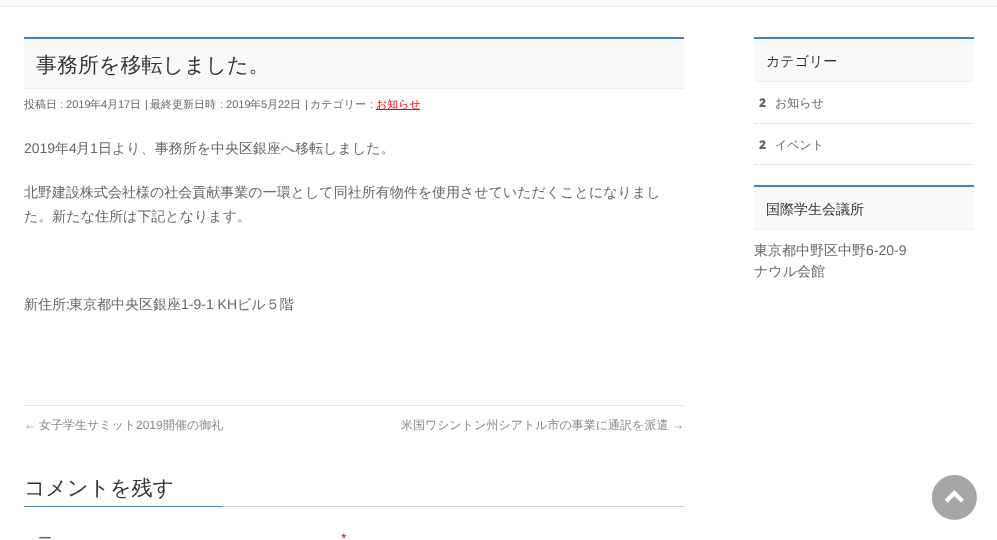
(async () => {
    const canvas = document.querySelector("canvas");
    canvas.width = 997;
    canvas.height = 540;
    const context = canvas.getContext("2d");
    context.miterLimit = 4;
    context.fontKerning = "normal";
    function write(s, x, y, font, color) {
        context.font = font;
        context.fillStyle = color;
        context.fillText(s, x, y);
    }
    function block(x, y, w, h, color) {
        context.fillStyle = color;
        context.fillRect(x, y, w, h);
    }
    async function photo(src, x, y, w, h) {
        const img = new Image();
        img.src = src;
        await img.decode();
        context.drawImage(img, x, y, w, h);
    }

    block(0, 0, 997, 540, "rgb(255, 255, 255)");
    block(0, 0, 997, 6, "rgb(252, 252, 252)");
    block(0, 6, 997, 1, "rgb(233, 233, 233)");
    block(24, 39, 660, 49, "rgb(249, 249, 249)");
    block(24, 37, 660, 2, "rgb(66, 133, 191)");
    block(24, 88, 660, 1, "rgb(239, 239, 239)");
    write("事務所を移転しました。", 36, 72, "500 21px WenQuanYi Zen Hei", "rgb(51, 51, 51)");
    write("投稿日", 24, 108, "500 11px WenQuanYi Zen Hei", "rgb(102, 102, 102)");
    write(": 2019", 60, 108, "11px Liberation Sans", "rgb(102, 102, 102)");
    write("年", 90, 108, "500 11px WenQuanYi Zen Hei", "rgb(102, 102, 102)");
    write("4", 101, 108, "11px Liberation Sans", "rgb(102, 102, 102)");
    write("月", 107, 108, "500 11px WenQuanYi Zen Hei", "rgb(102, 102, 102)");
    write("17", 118, 108, "11px Liberation Sans", "rgb(102, 102, 102)");
    write("日", 130, 108, "500 11px WenQuanYi Zen Hei", "rgb(102, 102, 102)");
    write("|", 145, 108, "11px Liberation Sans", "rgb(102, 102, 102)");
    write("最終更新日時", 150, 108, "500 11px WenQuanYi Zen Hei", "rgb(102, 102, 102)");
    write(": 2019", 220, 108, "11px Liberation Sans", "rgb(102, 102, 102)");
    write("年", 250, 108, "500 11px WenQuanYi Zen Hei", "rgb(102, 102, 102)");
    write("5", 261, 108, "11px Liberation Sans", "rgb(102, 102, 102)");
    write("月", 267, 108, "500 11px WenQuanYi Zen Hei", "rgb(102, 102, 102)");
    write("22", 278, 108, "11px Liberation Sans", "rgb(102, 102, 102)");
    write("日", 290, 108, "500 11px WenQuanYi Zen Hei", "rgb(102, 102, 102)");
    write("|", 305, 108, "11px Liberation Sans", "rgb(102, 102, 102)");
    write("カテゴリー", 310, 108, "500 11px WenQuanYi Zen Hei", "rgb(102, 102, 102)");
    write(":", 370, 108, "11px Liberation Sans", "rgb(102, 102, 102)");
    block(376, 109, 44, 1, "rgb(255, 0, 0)");
    write("お知らせ", 376, 108, "500 11px WenQuanYi Zen Hei", "rgb(255, 0, 0)");
    write("2019", 24, 153, "14px Liberation Sans", "rgb(102, 102, 102)");
    write("年", 55, 153, "500 14px WenQuanYi Zen Hei", "rgb(102, 102, 102)");
    write("4", 69, 153, "14px Liberation Sans", "rgb(102, 102, 102)");
    write("月", 76, 153, "500 14px WenQuanYi Zen Hei", "rgb(102, 102, 102)");
    write("1", 90, 153, "14px Liberation Sans", "rgb(102, 102, 102)");
    write("日より、事務所を中央区銀座へ移転しました。", 98, 153, "500 14px WenQuanYi Zen Hei", "rgb(102, 102, 102)");
    write("北野建設株式会社様の社会貢献事業の一環として同社所有物件を使用させていただくことになりまし", 24, 197, "500 14px WenQuanYi Zen Hei", "rgb(102, 102, 102)");
    write("た。新たな住所は下記となります。", 24, 221, "500 14px WenQuanYi Zen Hei", "rgb(102, 102, 102)");
    write("新住所", 24, 309, "500 14px WenQuanYi Zen Hei", "rgb(102, 102, 102)");
    write(":", 66, 309, "14px Liberation Sans", "rgb(102, 102, 102)");
    write("東京都中央区銀座", 69, 309, "500 14px WenQuanYi Zen Hei", "rgb(102, 102, 102)");
    write("1-9-1 KH", 181, 309, "14px Liberation Sans", "rgb(102, 102, 102)");
    write("ビル５階", 237, 309, "500 14px WenQuanYi Zen Hei", "rgb(102, 102, 102)");
    block(24, 405, 660, 1, "rgb(229, 229, 229)");
    write("←", 24, 429, "12px Liberation Sans", "rgb(136, 136, 136)");
    write("女子学生サミット", 39, 429, "500 12px WenQuanYi Zen Hei", "rgb(136, 136, 136)");
    write("2019", 136, 429, "12px Liberation Sans", "rgb(136, 136, 136)");
    write("開催の御礼", 163, 429, "500 12px WenQuanYi Zen Hei", "rgb(136, 136, 136)");
    write("米国ワシントン州シアトル市の事業に通訳を派遣", 401, 429, "500 12px WenQuanYi Zen Hei", "rgb(136, 136, 136)");
    write("→", 672, 429, "12px Liberation Sans", "rgb(136, 136, 136)");
    block(222, 506, 462, 1, "rgb(204, 204, 204)");
    write("コメントを残す", 24, 495, "500 21px WenQuanYi Zen Hei", "rgb(51, 51, 51)");
    block(24, 506, 198, 1, "rgb(66, 133, 191)");
    write("ー", 38, 543, "500 14px WenQuanYi Zen Hei", "rgb(102, 102, 102)");
    write("*", 341, 543, "14px Liberation Sans", "rgb(229, 0, 0)");
    block(754, 39, 220, 42, "rgb(249, 249, 249)");
    block(754, 37, 220, 2, "rgb(66, 133, 191)");
    block(754, 81, 220, 1, "rgb(239, 239, 239)");
    write("カテゴリー", 766, 66, "500 14px WenQuanYi Zen Hei", "rgb(51, 51, 51)");
    context.beginPath();
    context.moveTo(754, 123.5);
    context.lineTo(974, 123.5);
    context.strokeStyle = "rgb(204, 204, 204)";
    context.setLineDash([1, 1]);
    context.stroke();
    write("2", 759, 107, "900 12px Noto Sans", "rgb(102, 102, 102)");
    write("お知らせ", 775, 107, "500 12px WenQuanYi Zen Hei", "rgb(102, 102, 102)");
    context.beginPath();
    context.moveTo(754, 164.5);
    context.lineTo(974, 164.5);
    context.stroke();
    write("2", 759, 149, "900 12px Noto Sans", "rgb(102, 102, 102)");
    write("イベント", 775, 149, "500 12px WenQuanYi Zen Hei", "rgb(102, 102, 102)");
    block(754, 187, 220, 42, "rgb(249, 249, 249)");
    block(754, 185, 220, 2, "rgb(66, 133, 191)");
    block(754, 229, 220, 1, "rgb(239, 239, 239)");
    write("国際学生会議所", 766, 214, "500 14px WenQuanYi Zen Hei", "rgb(51, 51, 51)");
    write("東京都中野区中野", 754, 255, "500 14px WenQuanYi Zen Hei", "rgb(102, 102, 102)");
    write("6-20-9", 866, 255, "14px Liberation Sans", "rgb(102, 102, 102)");
    write("ナウル会館", 754, 276, "500 14px WenQuanYi Zen Hei", "rgb(102, 102, 102)");
    await photo("media/1.png", 932, 475, 45, 45);
})();
